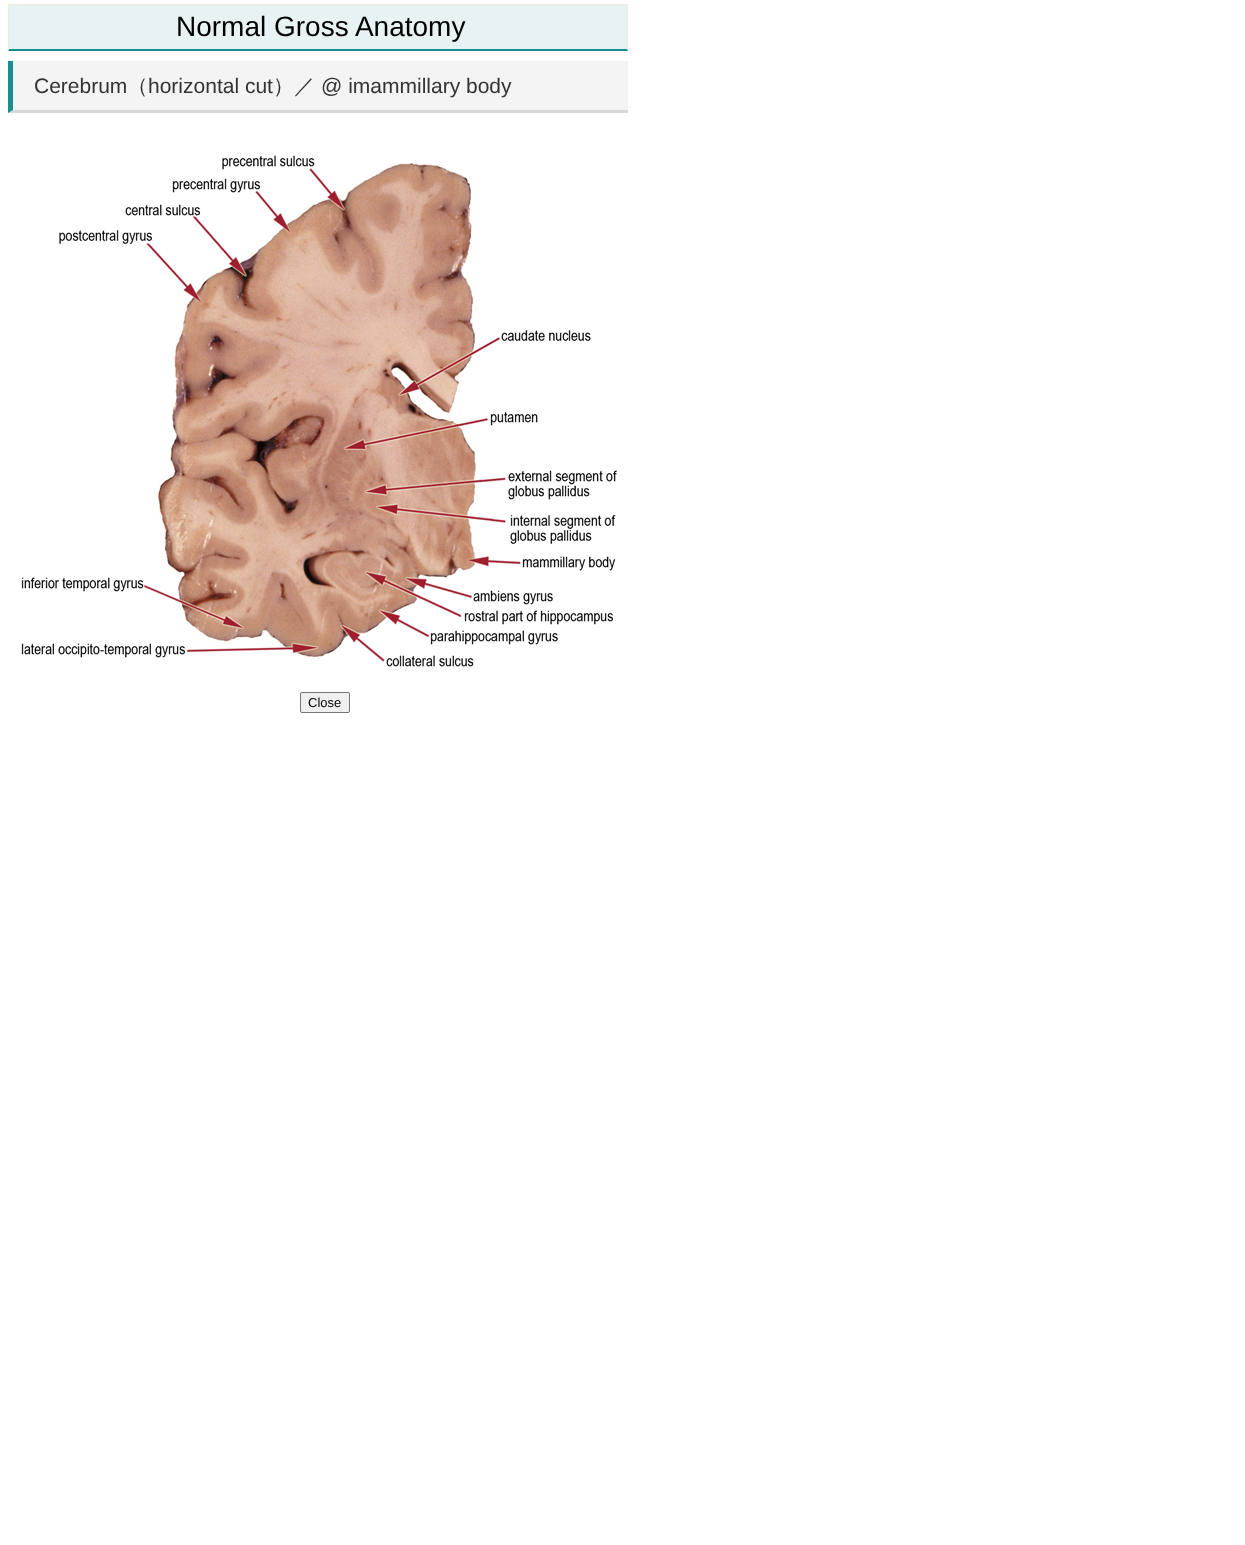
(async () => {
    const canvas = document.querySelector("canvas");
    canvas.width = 1245;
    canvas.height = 1545;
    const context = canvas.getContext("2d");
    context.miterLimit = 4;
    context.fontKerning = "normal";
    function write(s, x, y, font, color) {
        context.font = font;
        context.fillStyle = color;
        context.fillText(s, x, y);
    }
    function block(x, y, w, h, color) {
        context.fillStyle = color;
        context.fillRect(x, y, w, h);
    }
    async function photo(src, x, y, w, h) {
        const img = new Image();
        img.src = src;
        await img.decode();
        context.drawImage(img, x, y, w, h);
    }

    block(0, 0, 1245, 1545, "rgb(255, 255, 255)");
    block(9, 5, 618, 44, "rgb(231, 243, 242)");
    block(8, 4, 620, 1, "rgb(241, 235, 219)");
    context.beginPath();
    context.moveTo(628, 4);
    context.lineTo(628, 51);
    context.lineTo(627, 49);
    context.lineTo(627, 5);
    context.closePath();
    context.fill();
    context.fillStyle = "rgb(20, 143, 146)";
    context.beginPath();
    context.moveTo(628, 51);
    context.lineTo(8, 51);
    context.lineTo(9, 49);
    context.lineTo(627, 49);
    context.closePath();
    context.fill();
    context.fillStyle = "rgb(241, 235, 219)";
    context.beginPath();
    context.moveTo(8, 51);
    context.lineTo(8, 4);
    context.lineTo(9, 5);
    context.lineTo(9, 49);
    context.closePath();
    context.fill();
    write("Normal Gross Anatomy", 176, 36, "28px Liberation Sans", "rgb(0, 0, 0)");
    block(8, 61, 620, 52, "rgb(244, 244, 244)");
    context.fillStyle = "rgb(215, 215, 215)";
    context.beginPath();
    context.moveTo(628, 113);
    context.lineTo(8, 113);
    context.lineTo(13, 110);
    context.lineTo(628, 110);
    context.closePath();
    context.fill();
    context.fillStyle = "rgb(20, 143, 146)";
    context.beginPath();
    context.moveTo(8, 113);
    context.lineTo(8, 61);
    context.lineTo(13, 61);
    context.lineTo(13, 110);
    context.closePath();
    context.fill();
    write("Cerebrum", 34, 93, "21px Liberation Sans", "rgb(51, 51, 51)");
    write("（", 127, 93, "500 21px WenQuanYi Zen Hei", "rgb(51, 51, 51)");
    write("horizontal cut", 148, 93, "21px Liberation Sans", "rgb(51, 51, 51)");
    write("）／", 273, 93, "500 21px WenQuanYi Zen Hei", "rgb(51, 51, 51)");
    write("@ imammillary body", 321, 93, "21px Liberation Sans", "rgb(51, 51, 51)");
    await photo("media/1.png", 21, 155, 596, 512);
    context.fillStyle = "rgb(239, 239, 239)";
    context.beginPath();
    context.roundRect(300.5, 692.5, 49, 20, 1.5);
    context.fill();
    context.strokeStyle = "rgb(118, 118, 118)";
    context.stroke();
    write("Close", 308, 707, "13px Liberation Sans", "rgb(0, 0, 0)");
})();
